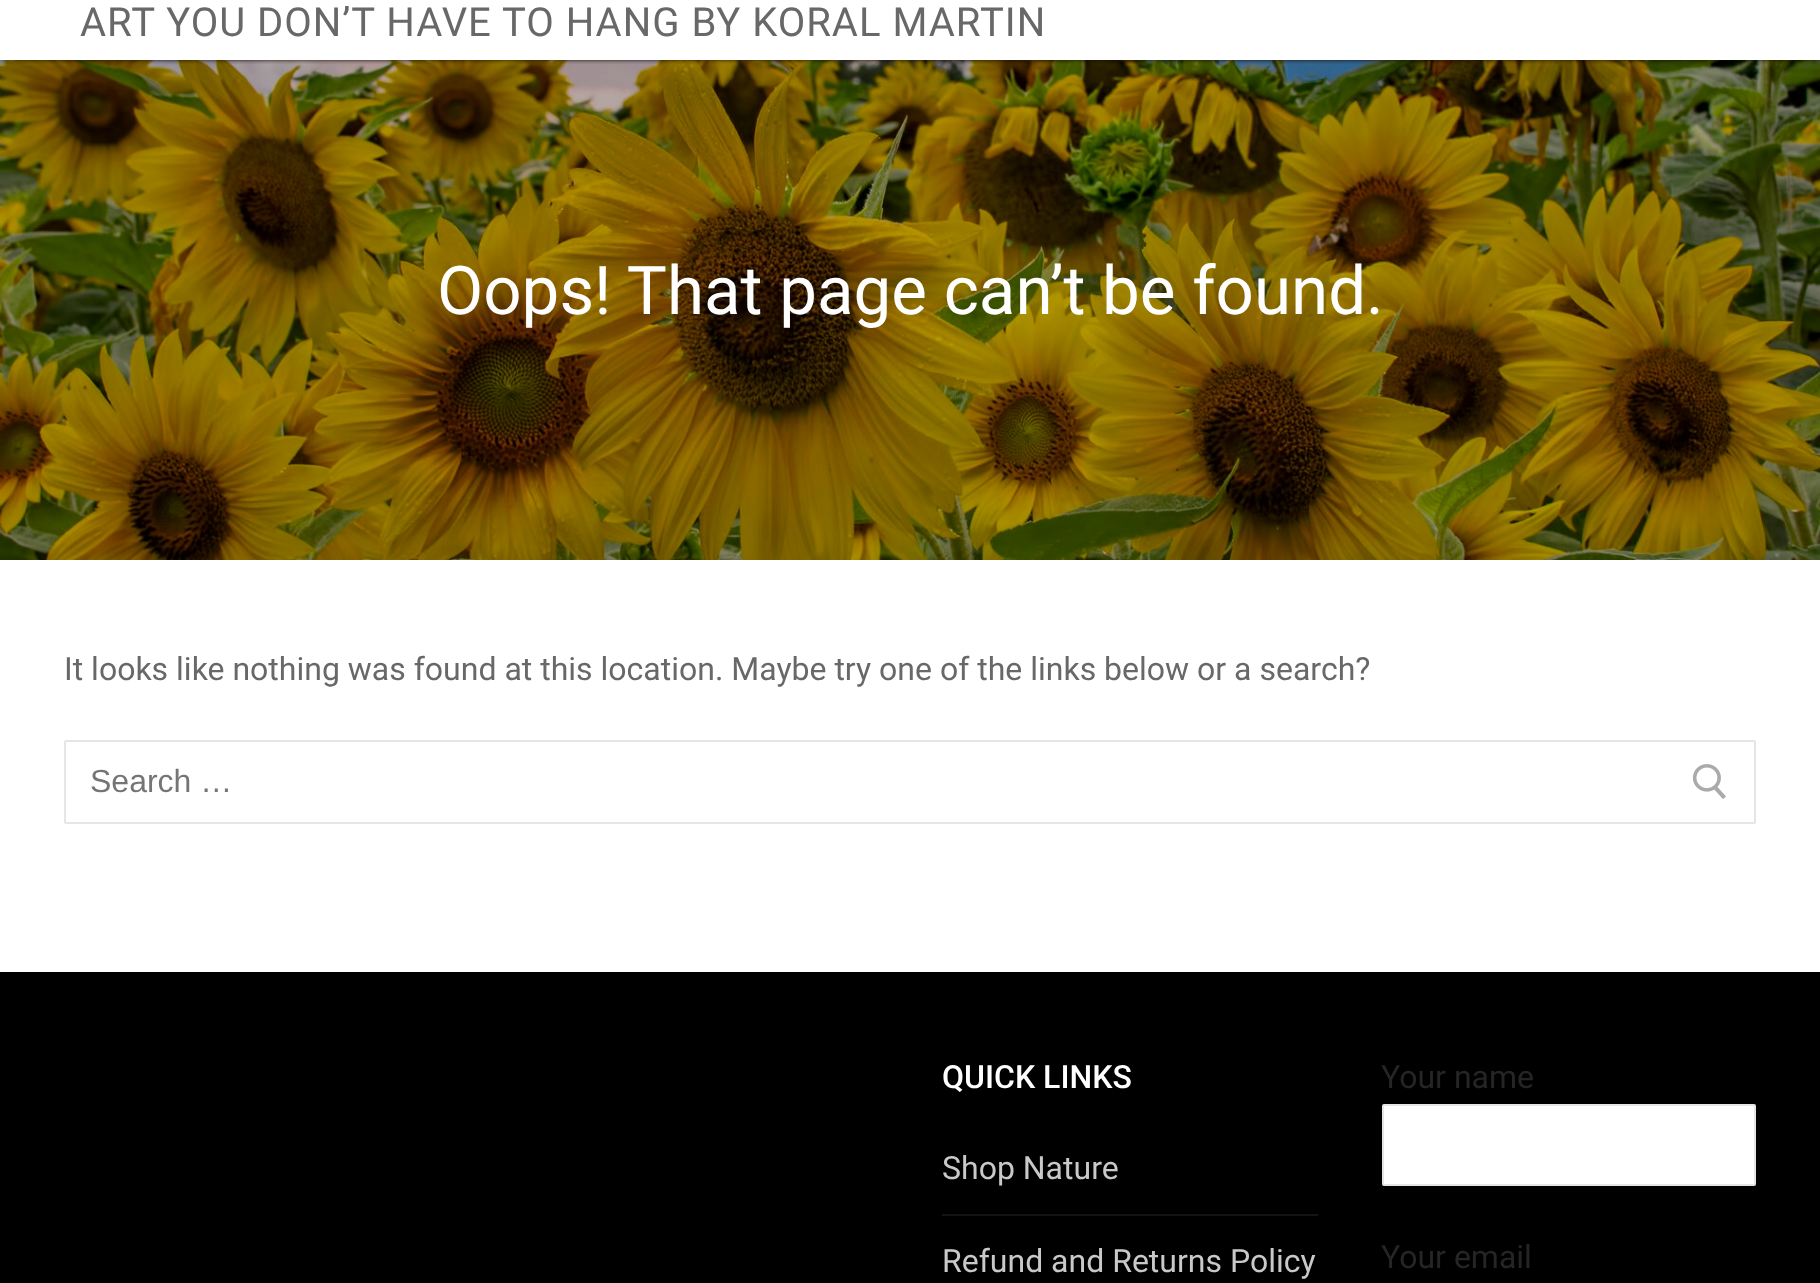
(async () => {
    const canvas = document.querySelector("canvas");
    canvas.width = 1820;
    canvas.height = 1283;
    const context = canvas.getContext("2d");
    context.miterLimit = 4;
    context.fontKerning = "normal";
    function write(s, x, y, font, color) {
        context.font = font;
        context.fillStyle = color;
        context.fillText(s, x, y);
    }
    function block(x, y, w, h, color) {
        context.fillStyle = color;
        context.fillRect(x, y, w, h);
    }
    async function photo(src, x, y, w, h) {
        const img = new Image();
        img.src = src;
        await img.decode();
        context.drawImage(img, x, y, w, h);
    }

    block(0, 0, 1820, 1283, "rgb(255, 255, 255)");
    await photo("media/1.png", 0, 60, 1820, 500);
    context.save();
    context.beginPath();
    context.rect(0, 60, 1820, 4);
    context.clip();
    context.fillStyle = "rgb(22, 9, 3)";
    context.filter = "blur(2px)";
    context.beginPath();
    context.rect(2, -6, 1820, 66);
    context.fill();
    context.filter = "none";
    context.restore();
    context.letterSpacing = "1px";
    write("ART YOU DON’T HAVE TO HANG BY KORAL MARTIN", 80, 36, "40px Roboto", "rgb(104, 104, 104)");
    context.letterSpacing = "0px";
    write("Oops! That page can’t be found.", 437, 314, "67.25px Roboto", "rgb(255, 255, 255)");
    write("It looks like nothing was found at this location. Maybe try one of the links below or a search?", 64, 680, "32px Roboto", "rgb(104, 104, 104)");
    context.beginPath();
    context.roundRect(65, 741, 1690, 82, 1);
    context.strokeStyle = "rgb(229, 229, 229)";
    context.lineWidth = 2;
    context.stroke();
    write("Search …", 90, 792, "32px Liberation Sans", "rgb(117, 117, 117)");
    await photo("media/2.png", 1692, 764, 34, 35);
    block(0, 972, 1820, 311, "rgb(0, 0, 0)");
    write("QUICK LINKS", 942, 1088, "500 32px Roboto", "rgb(255, 255, 255)");
    block(942, 1214, 376, 2, "rgb(20, 20, 20)");
    write("Shop Nature", 942, 1179, "32px Roboto", "rgb(201, 201, 201)");
    write("Refund and Returns Policy", 942, 1272, "32px Roboto", "rgb(201, 201, 201)");
    write("Your name", 1381, 1088, "32px Roboto", "rgb(37, 37, 37)");
    context.fillStyle = "rgb(255, 255, 255)";
    context.beginPath();
    context.roundRect(1383, 1105, 372, 80, 1);
    context.fill();
    context.stroke();
    write("Your email", 1381, 1268, "32px Roboto", "rgb(37, 37, 37)");
})();
